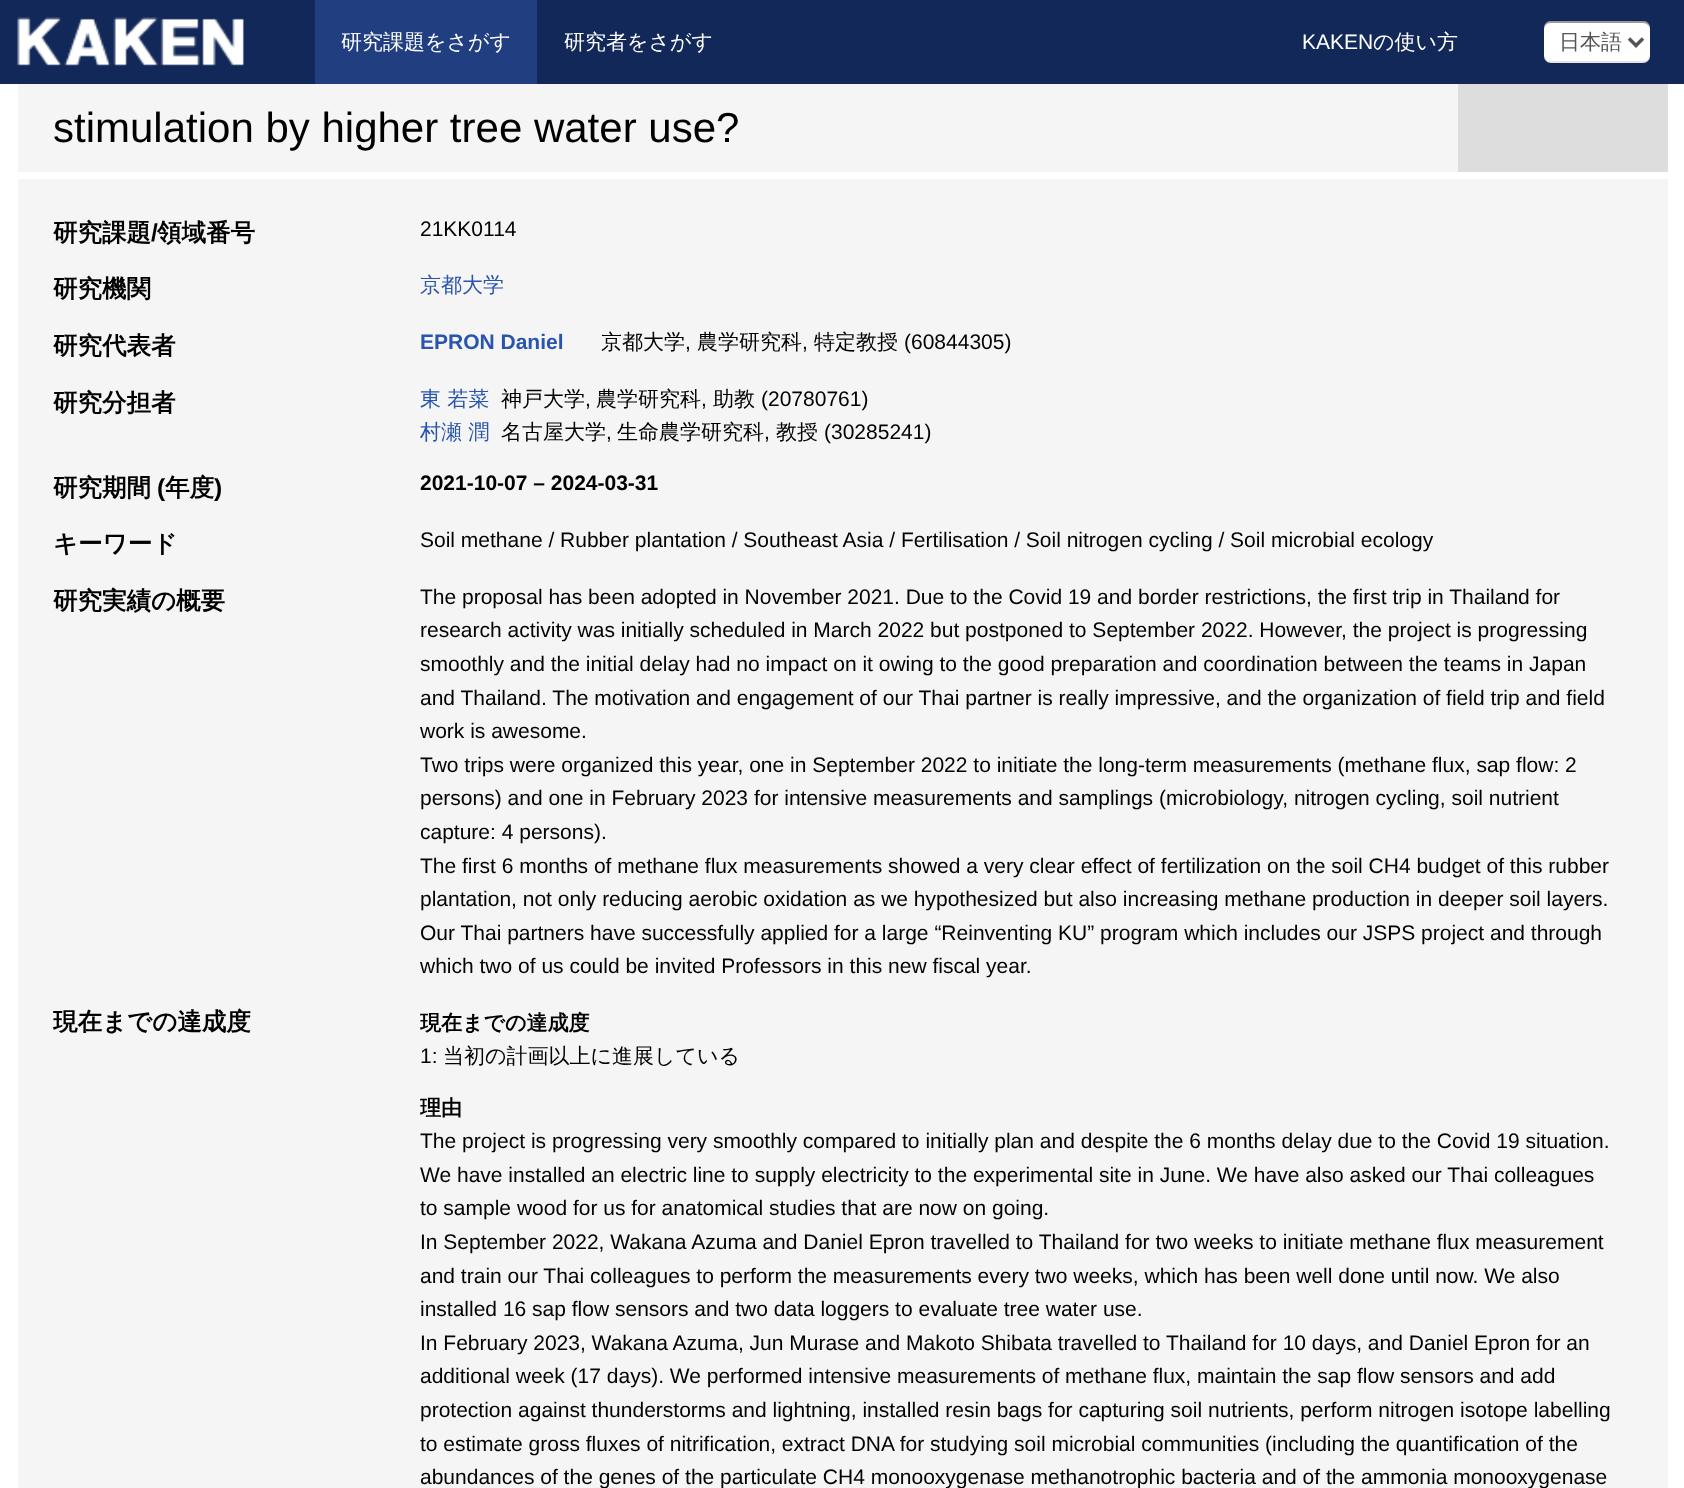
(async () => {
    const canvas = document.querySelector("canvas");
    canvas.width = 1684;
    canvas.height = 1488;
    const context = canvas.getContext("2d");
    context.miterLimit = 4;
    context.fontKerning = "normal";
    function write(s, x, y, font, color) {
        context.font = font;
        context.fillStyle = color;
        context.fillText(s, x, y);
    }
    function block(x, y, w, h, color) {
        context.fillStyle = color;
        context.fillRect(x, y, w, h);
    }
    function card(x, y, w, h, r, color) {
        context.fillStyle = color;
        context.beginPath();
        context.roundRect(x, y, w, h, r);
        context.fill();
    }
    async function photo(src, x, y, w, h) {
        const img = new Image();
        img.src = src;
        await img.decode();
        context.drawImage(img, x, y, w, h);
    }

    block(0, 0, 1684, 1488, "rgb(255, 255, 255)");
    block(0, 0, 1684, 84, "rgb(18, 40, 88)");
    await photo("media/1.png", 17, 17, 227, 49);
    block(315, 0, 222, 84, "rgb(32, 62, 128)");
    write("研究課題をさがす", 341, 49, "500 21px WenQuanYi Zen Hei", "rgb(255, 255, 255)");
    write("研究者をさがす", 564, 49, "500 21px WenQuanYi Zen Hei", "rgb(255, 255, 255)");
    write("KAKEN", 1302, 49, "21px Liberation Sans", "rgb(255, 255, 255)");
    write("の使い方", 1373, 49, "500 21px WenQuanYi Zen Hei", "rgb(255, 255, 255)");
    card(1544, 21, 106, 42, 7, "rgb(255, 255, 255)");
    context.fillStyle = "rgba(0, 0, 0, 0.1)";
    context.beginPath();
    context.moveTo(1544, 54);
    context.bezierCurveTo(1544, 67, 1557, 63, 1566, 63);
    context.lineTo(1628, 63);
    context.bezierCurveTo(1637, 63, 1650, 67, 1650, 54);
    context.bezierCurveTo(1650, 58, 1647, 61, 1643, 61);
    context.lineTo(1550, 61);
    context.bezierCurveTo(1547, 61, 1544, 58, 1544, 54);
    context.closePath();
    context.fill();
    context.fillStyle = "rgba(0, 0, 0, 0.4)";
    context.beginPath();
    context.moveTo(1550, 23);
    context.lineTo(1643, 23);
    context.bezierCurveTo(1647, 23, 1650, 26, 1650, 30);
    context.bezierCurveTo(1650, 17, 1637, 21, 1628, 21);
    context.lineTo(1566, 21);
    context.bezierCurveTo(1557, 21, 1544, 17, 1544, 30);
    context.bezierCurveTo(1544, 26, 1547, 23, 1550, 23);
    context.closePath();
    context.fill();
    context.beginPath();
    context.moveTo(1629, 38.5);
    context.lineTo(1636, 45.5);
    context.lineTo(1643, 38.5);
    context.strokeStyle = "rgb(85, 85, 85)";
    context.lineWidth = 3.5;
    context.stroke();
    write("日本語", 1559, 49, "500 21px WenQuanYi Zen Hei", "rgb(85, 85, 85)");
    block(18, 84, 1650, 1404, "rgb(245, 245, 245)");
    block(1458, 84, 210, 88, "rgb(221, 221, 221)");
    write("stimulation by higher tree water use?", 53, 142, "42px Liberation Sans", "rgb(0, 0, 0)");
    block(18, 172, 1650, 7, "rgb(255, 255, 255)");
    write("研究課題", 53, 241, "bold 24.5px WenQuanYi Zen Hei", "rgb(0, 0, 0)");
    write("/", 151, 241, "bold 24.5px Liberation Sans", "rgb(0, 0, 0)");
    write("領域番号", 157, 241, "bold 24.5px WenQuanYi Zen Hei", "rgb(0, 0, 0)");
    write("21KK0114", 420, 236, "21px Liberation Sans", "rgb(0, 0, 0)");
    write("研究機関", 53, 297, "bold 24.5px WenQuanYi Zen Hei", "rgb(0, 0, 0)");
    write("京都大学", 420, 292, "500 21px WenQuanYi Zen Hei", "rgb(41, 84, 175)");
    write("研究代表者", 53, 354, "bold 24.5px WenQuanYi Zen Hei", "rgb(0, 0, 0)");
    write("EPRON Daniel", 420, 349, "bold 21px Liberation Sans", "rgb(41, 84, 175)");
    write("京都大学", 601, 349, "500 21px WenQuanYi Zen Hei", "rgb(0, 0, 0)");
    write(",", 685, 349, "21px Liberation Sans", "rgb(0, 0, 0)");
    write("農学研究科", 697, 349, "500 21px WenQuanYi Zen Hei", "rgb(0, 0, 0)");
    write(",", 802, 349, "21px Liberation Sans", "rgb(0, 0, 0)");
    write("特定教授", 814, 349, "500 21px WenQuanYi Zen Hei", "rgb(0, 0, 0)");
    write("(60844305)", 904, 349, "21px Liberation Sans", "rgb(0, 0, 0)");
    write("研究分担者", 53, 411, "bold 24.5px WenQuanYi Zen Hei", "rgb(0, 0, 0)");
    write("東 若菜", 420, 406, "500 21px WenQuanYi Zen Hei", "rgb(41, 84, 175)");
    write("神戸大学", 501, 406, "500 21px WenQuanYi Zen Hei", "rgb(0, 0, 0)");
    write(",", 585, 406, "21px Liberation Sans", "rgb(0, 0, 0)");
    write("農学研究科", 596, 406, "500 21px WenQuanYi Zen Hei", "rgb(0, 0, 0)");
    write(",", 701, 406, "21px Liberation Sans", "rgb(0, 0, 0)");
    write("助教", 713, 406, "500 21px WenQuanYi Zen Hei", "rgb(0, 0, 0)");
    write("(20780761)", 761, 406, "21px Liberation Sans", "rgb(0, 0, 0)");
    write("村瀬 潤", 420, 439, "500 21px WenQuanYi Zen Hei", "rgb(41, 84, 175)");
    write("名古屋大学", 501, 439, "500 21px WenQuanYi Zen Hei", "rgb(0, 0, 0)");
    write(",", 606, 439, "21px Liberation Sans", "rgb(0, 0, 0)");
    write("生命農学研究科", 617, 439, "500 21px WenQuanYi Zen Hei", "rgb(0, 0, 0)");
    write(",", 764, 439, "21px Liberation Sans", "rgb(0, 0, 0)");
    write("教授", 776, 439, "500 21px WenQuanYi Zen Hei", "rgb(0, 0, 0)");
    write("(30285241)", 824, 439, "21px Liberation Sans", "rgb(0, 0, 0)");
    write("研究期間", 53, 496, "bold 24.5px WenQuanYi Zen Hei", "rgb(0, 0, 0)");
    write("(", 157, 496, "bold 24.5px Liberation Sans", "rgb(0, 0, 0)");
    write("年度", 165, 496, "bold 24.5px WenQuanYi Zen Hei", "rgb(0, 0, 0)");
    write(")", 214, 496, "bold 24.5px Liberation Sans", "rgb(0, 0, 0)");
    write("2021-10-07 – 2024-03-31", 420, 490, "bold 21px Liberation Sans", "rgb(0, 0, 0)");
    write("キーワード", 53, 552, "bold 24.5px WenQuanYi Zen Hei", "rgb(0, 0, 0)");
    write("Soil methane / Rubber plantation / Southeast Asia / Fertilisation / Soil nitrogen cycling / Soil microbial ecology", 420, 547, "21px Liberation Sans", "rgb(0, 0, 0)");
    write("研究実績の概要", 53, 609, "bold 24.5px WenQuanYi Zen Hei", "rgb(0, 0, 0)");
    write("The proposal has been adopted in November 2021. Due to the Covid 19 and border restrictions, the first trip in Thailand for", 420, 604, "21px Liberation Sans", "rgb(0, 0, 0)");
    write("research activity was initially scheduled in March 2022 but postponed to September 2022. However, the project is progressing", 420, 637, "21px Liberation Sans", "rgb(0, 0, 0)");
    write("smoothly and the initial delay had no impact on it owing to the good preparation and coordination between the teams in Japan", 420, 671, "21px Liberation Sans", "rgb(0, 0, 0)");
    write("and Thailand. The motivation and engagement of our Thai partner is really impressive, and the organization of field trip and field", 420, 705, "21px Liberation Sans", "rgb(0, 0, 0)");
    write("work is awesome.", 420, 738, "21px Liberation Sans", "rgb(0, 0, 0)");
    write("Two trips were organized this year, one in September 2022 to initiate the long-term measurements (methane flux, sap flow: 2", 420, 772, "21px Liberation Sans", "rgb(0, 0, 0)");
    write("persons) and one in February 2023 for intensive measurements and samplings (microbiology, nitrogen cycling, soil nutrient", 420, 805, "21px Liberation Sans", "rgb(0, 0, 0)");
    write("capture: 4 persons).", 420, 839, "21px Liberation Sans", "rgb(0, 0, 0)");
    write("The first 6 months of methane flux measurements showed a very clear effect of fertilization on the soil CH4 budget of this rubber", 420, 873, "21px Liberation Sans", "rgb(0, 0, 0)");
    write("plantation, not only reducing aerobic oxidation as we hypothesized but also increasing methane production in deeper soil layers.", 420, 906, "21px Liberation Sans", "rgb(0, 0, 0)");
    write("Our Thai partners have successfully applied for a large “Reinventing KU” program which includes our JSPS project and through", 420, 940, "21px Liberation Sans", "rgb(0, 0, 0)");
    write("which two of us could be invited Professors in this new fiscal year.", 420, 973, "21px Liberation Sans", "rgb(0, 0, 0)");
    write("現在までの達成度", 53, 1030, "bold 24.5px WenQuanYi Zen Hei", "rgb(0, 0, 0)");
    write("現在までの達成度", 420, 1030, "bold 21px WenQuanYi Zen Hei", "rgb(0, 0, 0)");
    write("1:", 420, 1063, "21px Liberation Sans", "rgb(0, 0, 0)");
    write("当初の計画以上に進展している", 443, 1063, "500 21px WenQuanYi Zen Hei", "rgb(0, 0, 0)");
    write("理由", 420, 1115, "bold 21px WenQuanYi Zen Hei", "rgb(0, 0, 0)");
    write("The project is progressing very smoothly compared to initially plan and despite the 6 months delay due to the Covid 19 situation.", 420, 1148, "21px Liberation Sans", "rgb(0, 0, 0)");
    write("We have installed an electric line to supply electricity to the experimental site in June. We have also asked our Thai colleagues", 420, 1182, "21px Liberation Sans", "rgb(0, 0, 0)");
    write("to sample wood for us for anatomical studies that are now on going.", 420, 1215, "21px Liberation Sans", "rgb(0, 0, 0)");
    write("In September 2022, Wakana Azuma and Daniel Epron travelled to Thailand for two weeks to initiate methane flux measurement", 420, 1249, "21px Liberation Sans", "rgb(0, 0, 0)");
    write("and train our Thai colleagues to perform the measurements every two weeks, which has been well done until now. We also", 420, 1283, "21px Liberation Sans", "rgb(0, 0, 0)");
    write("installed 16 sap flow sensors and two data loggers to evaluate tree water use.", 420, 1316, "21px Liberation Sans", "rgb(0, 0, 0)");
    write("In February 2023, Wakana Azuma, Jun Murase and Makoto Shibata travelled to Thailand for 10 days, and Daniel Epron for an", 420, 1350, "21px Liberation Sans", "rgb(0, 0, 0)");
    write("additional week (17 days). We performed intensive measurements of methane flux, maintain the sap flow sensors and add", 420, 1383, "21px Liberation Sans", "rgb(0, 0, 0)");
    write("protection against thunderstorms and lightning, installed resin bags for capturing soil nutrients, perform nitrogen isotope labelling", 420, 1417, "21px Liberation Sans", "rgb(0, 0, 0)");
    write("to estimate gross fluxes of nitrification, extract DNA for studying soil microbial communities (including the quantification of the", 420, 1451, "21px Liberation Sans", "rgb(0, 0, 0)");
    write("abundances of the genes of the particulate CH4 monooxygenase methanotrophic bacteria and of the ammonia monooxygenase", 420, 1484, "21px Liberation Sans", "rgb(0, 0, 0)");
})();
